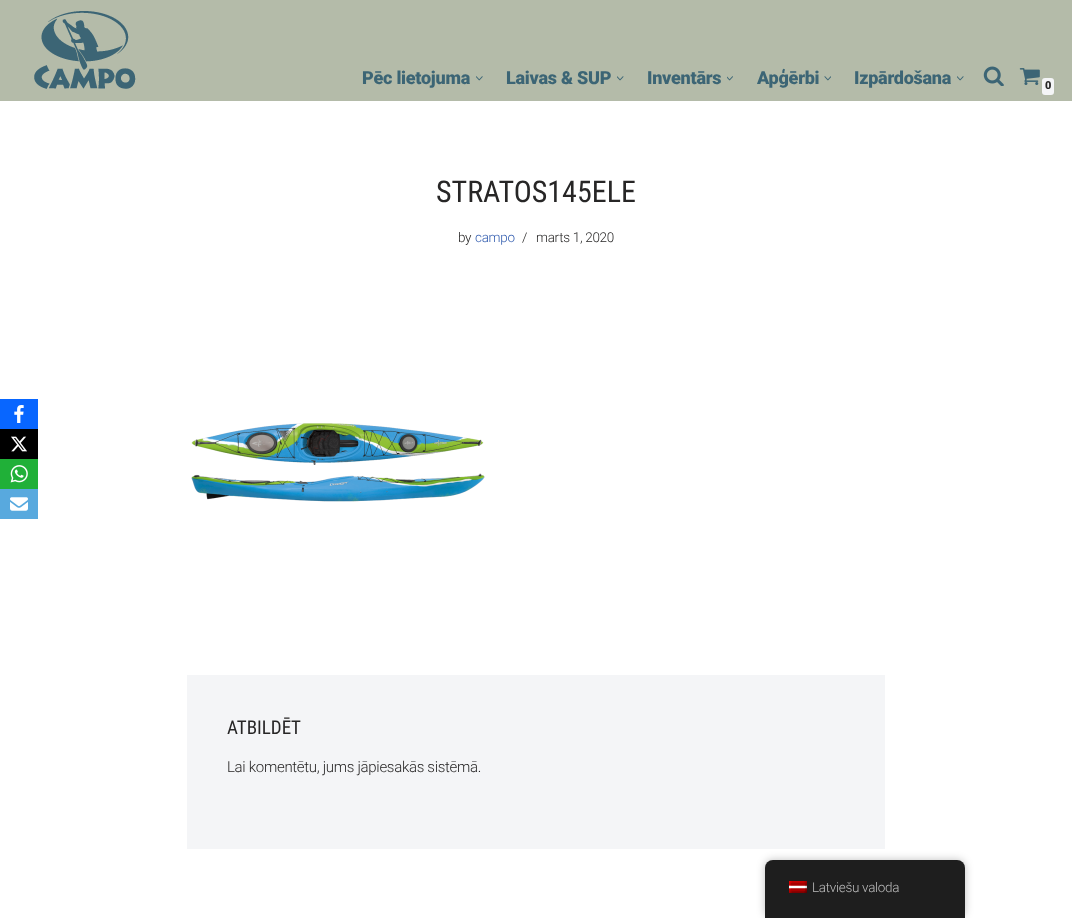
(async () => {
    const canvas = document.querySelector("canvas");
    canvas.width = 1072;
    canvas.height = 918;
    const context = canvas.getContext("2d");
    context.miterLimit = 4;
    context.fontKerning = "normal";
    function write(s, x, y, font, color) {
        context.font = font;
        context.fillStyle = color;
        context.fillText(s, x, y);
    }
    function block(x, y, w, h, color) {
        context.fillStyle = color;
        context.fillRect(x, y, w, h);
    }
    function card(x, y, w, h, r, color) {
        context.fillStyle = color;
        context.beginPath();
        context.roundRect(x, y, w, h, r);
        context.fill();
    }
    async function photo(src, x, y, w, h) {
        const img = new Image();
        img.src = src;
        await img.decode();
        context.drawImage(img, x, y, w, h);
    }

    block(0, 0, 1072, 918, "rgb(255, 255, 255)");
    block(0, 399, 38, 30, "rgb(8, 102, 255)");
    await photo("media/1.png", 14, 405, 10, 18);
    block(0, 429, 38, 30, "rgb(0, 0, 0)");
    await photo("media/2.png", 11, 436, 16, 16);
    block(0, 459, 38, 30, "rgb(32, 176, 56)");
    await photo("media/3.png", 10, 465, 18, 18);
    block(0, 489, 38, 30, "rgb(88, 169, 222)");
    await photo("media/4.png", 10, 497, 18, 14);
    block(0, 0, 1072, 101, "rgb(180, 187, 169)");
    await photo("media/5.png", 34, 11, 102, 78);
    context.letterSpacing = "-0.25px";
    write("Pēc lietojuma", 362, 84, "900 18px Roboto", "rgb(60, 101, 117)");
    await photo("media/6.png", 476, 76, 7, 5);
    write("Laivas & SUP", 506, 84, "900 18px Roboto", "rgb(60, 101, 117)");
    await photo("media/7.png", 617, 76, 7, 5);
    write("Inventārs", 647, 84, "900 18px Roboto", "rgb(60, 101, 117)");
    await photo("media/8.png", 727, 76, 6, 5);
    write("Apģērbi", 757, 84, "900 18px Roboto", "rgb(60, 101, 117)");
    await photo("media/9.png", 824, 76, 7, 5);
    write("Izpārdošana", 854, 84, "900 18px Roboto", "rgb(60, 101, 117)");
    await photo("media/10.png", 957, 76, 7, 5);
    await photo("media/11.png", 983, 66, 21, 20);
    await photo("media/12.png", 1019, 68, 21, 17);
    card(1042, 78, 12, 17, 3, "rgb(244, 245, 247)");
    write("0", 1045, 89, "900 11px Roboto", "rgb(39, 38, 38)");
    context.letterSpacing = "0px";
    write("STRATOS145ELE", 436, 202, "30px Roboto Condensed", "rgb(39, 38, 38)");
    context.letterSpacing = "-0.3px";
    write("by", 458, 242, "300 13.5px Roboto", "rgb(39, 38, 38)");
    write("campo", 475, 242, "300 13.5px Roboto", "rgb(47, 90, 174)");
    write("/", 522, 242, "300 13.5px Roboto", "rgb(39, 38, 38)");
    write("marts 1, 2020", 536, 242, "300 13.5px Roboto", "rgb(39, 38, 38)");
    await photo("media/13.png", 191, 423, 294, 79);
    block(187, 675, 698, 174, "rgb(244, 245, 247)");
    context.letterSpacing = "0px";
    write("ATBILDĒT", 227, 734, "19px Roboto Condensed", "rgb(39, 38, 38)");
    context.letterSpacing = "-0.3px";
    write("Lai komentētu, jums jāpiesakās sistēmā.", 227, 772, "300 15px Roboto", "rgb(39, 38, 38)");
    context.fillStyle = "rgba(0, 0, 0, 0.25)";
    context.filter = "blur(4px)";
    context.beginPath();
    context.roundRect(765, 860, 200, 58, 8);
    context.fill();
    context.filter = "none";
    context.fillStyle = "rgb(30, 30, 30)";
    context.beginPath();
    context.roundRect(765, 860, 200, 58, [8, 8, 0, 0]);
    context.fill();
    await photo("media/14.png", 789, 881, 18, 12);
    write("Latviešu valoda", 812, 892, "300 13.5px Roboto", "rgb(189, 189, 189)");
})();
